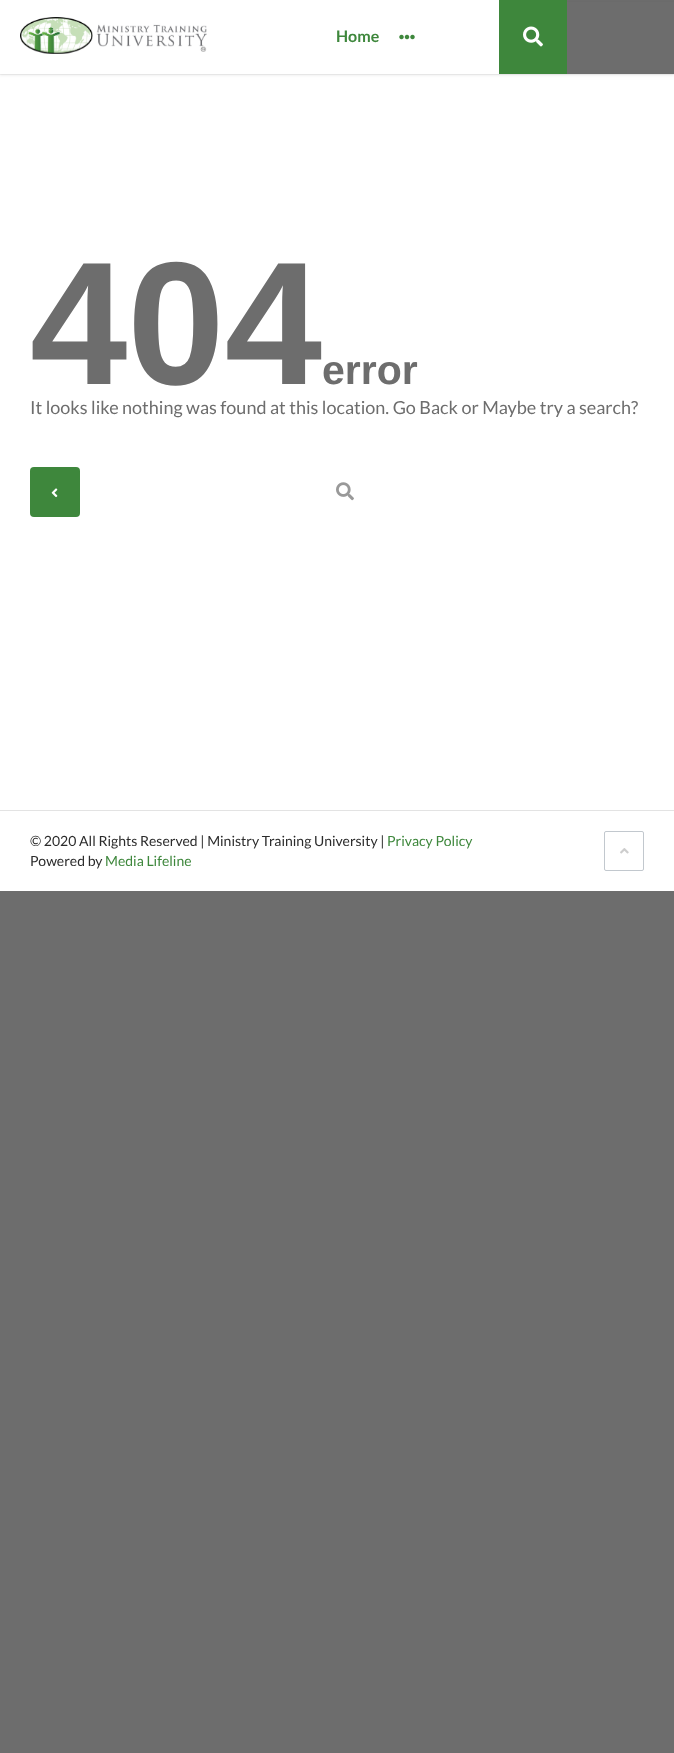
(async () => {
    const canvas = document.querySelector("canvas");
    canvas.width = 674;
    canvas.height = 1753;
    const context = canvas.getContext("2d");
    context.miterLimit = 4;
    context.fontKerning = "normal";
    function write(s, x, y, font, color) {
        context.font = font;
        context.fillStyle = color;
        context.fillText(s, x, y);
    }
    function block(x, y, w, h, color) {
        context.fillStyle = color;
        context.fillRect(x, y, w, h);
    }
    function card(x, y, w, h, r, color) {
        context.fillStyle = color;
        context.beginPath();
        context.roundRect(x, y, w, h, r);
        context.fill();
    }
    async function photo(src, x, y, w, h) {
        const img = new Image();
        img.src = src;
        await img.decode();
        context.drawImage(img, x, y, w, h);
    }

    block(0, 0, 674, 1753, "rgb(109, 109, 109)");
    block(0, 74, 674, 736, "rgb(255, 255, 255)");
    block(227, 74, 447, 1, "rgb(242, 242, 242)");
    context.fillStyle = "rgba(0, 0, 0, 0.05)";
    context.filter = "blur(1px)";
    context.beginPath();
    context.rect(227, 2, 447, 74);
    context.fill();
    context.filter = "none";
    block(0, 74, 227, 1, "rgba(0, 0, 0, 0.05)");
    context.filter = "blur(1px)";
    context.beginPath();
    context.rect(0, 2, 227, 74);
    context.fill();
    context.filter = "none";
    block(0, 0, 499, 74, "rgb(255, 255, 255)");
    await photo("media/1.png", 20, 17, 187, 37);
    write("Home", 336, 42, "bold 16px Lato", "rgb(62, 135, 60)");
    await photo("media/2.png", 399, 34, 16, 6);
    block(499, 0, 68, 74, "rgb(62, 135, 60)");
    await photo("media/3.png", 523, 26, 20, 21);
    block(567, 2, 107, 72, "rgb(109, 109, 109)");
    write("404", 30, 384, "bold 175px Arimo", "rgb(109, 109, 109)");
    write("error", 322, 384, "bold 41px Arimo", "rgb(109, 109, 109)");
    write("It looks like nothing was found at this location. Go Back or Maybe try a search?", 30, 414, "18px Lato", "rgb(109, 109, 109)");
    card(30, 467, 50, 50, 4, "rgb(62, 135, 60)");
    await photo("media/4.png", 51, 488, 7, 10);
    await photo("media/5.png", 336, 482, 18, 19);
    block(0, 811, 674, 80, "rgb(255, 255, 255)");
    block(0, 810, 674, 1, "rgb(227, 227, 227)");
    write("© 2020 All Rights Reserved | Ministry Training University |", 30, 846, "14px Lato", "rgb(43, 43, 43)");
    write("Privacy Policy", 387, 846, "14px Lato", "rgb(62, 135, 60)");
    write("Powered by", 30, 866, "14px Lato", "rgb(43, 43, 43)");
    write("Media Lifeline", 105, 866, "14px Lato", "rgb(62, 135, 60)");
    context.beginPath();
    context.roundRect(604.5, 831.5, 39, 39, 1.5);
    context.strokeStyle = "rgb(194, 200, 206)";
    context.stroke();
    await photo("media/6.png", 620, 848, 9, 6);
})();
